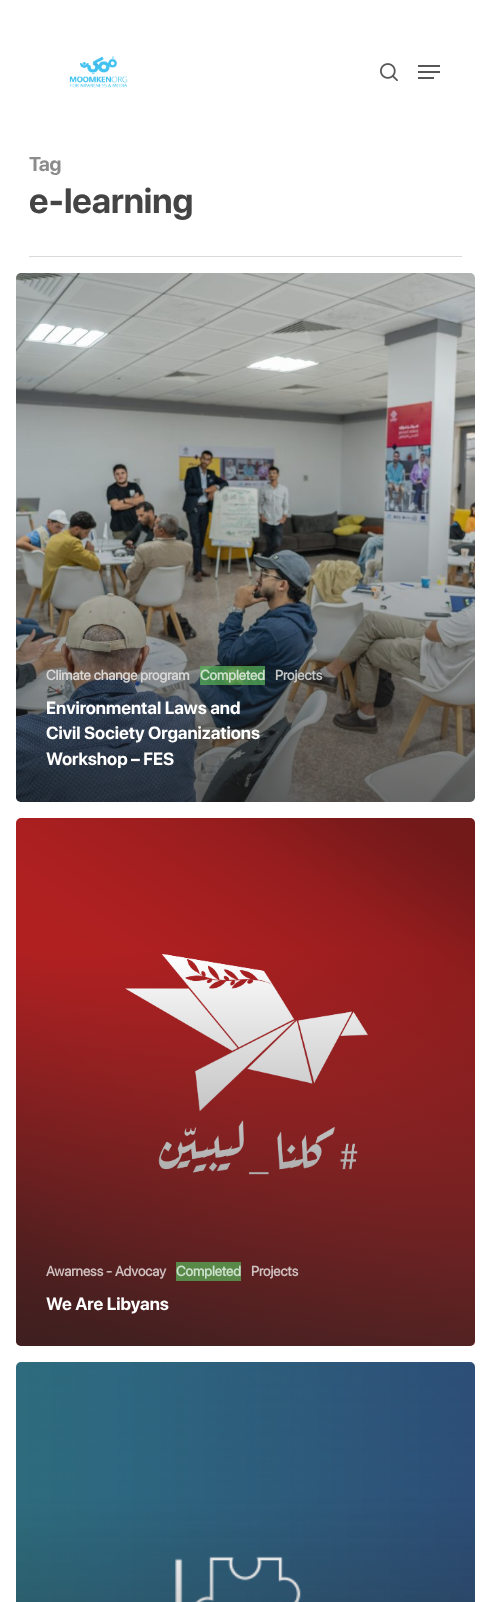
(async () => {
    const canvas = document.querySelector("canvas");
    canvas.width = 491;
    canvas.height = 1602;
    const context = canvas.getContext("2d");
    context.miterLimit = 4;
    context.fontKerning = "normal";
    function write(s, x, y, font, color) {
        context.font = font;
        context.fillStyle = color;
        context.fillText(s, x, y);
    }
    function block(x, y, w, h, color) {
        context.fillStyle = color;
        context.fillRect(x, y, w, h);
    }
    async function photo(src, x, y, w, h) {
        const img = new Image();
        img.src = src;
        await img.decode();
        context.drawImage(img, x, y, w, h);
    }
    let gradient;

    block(0, 0, 491, 1602, "rgb(255, 255, 255)");
    await photo("media/1.png", 69, 56, 59, 32);
    await photo("media/2.png", 380, 63, 18, 18);
    block(418, 65, 22, 2, "rgb(86, 86, 86)");
    block(418, 77, 16, 2, "rgb(86, 86, 86)");
    block(418, 71, 22, 2, "rgb(86, 86, 86)");
    block(29, 256, 433, 1, "rgb(217, 217, 217)");
    write("Tag", 29, 171, "bold 20px SF Pro Display", "rgb(140, 140, 140)");
    write("e-learning", 29, 213, "bold 35px SF Pro Display", "rgb(68, 68, 68)");
    await photo("media/3.png", 16, 273, 459, 529);
    gradient = context.createLinearGradient(246, 406, 247, 804);
    gradient.addColorStop(0, "rgba(35, 35, 35, 0)");
    gradient.addColorStop(1, "rgba(35, 35, 35, 0.65)");
    context.fillStyle = gradient;
    context.beginPath();
    context.roundRect(16, 406, 459, 396, [0, 0, 5, 5]);
    context.fill();
    write("Climate change program", 46, 680, "bold 14px 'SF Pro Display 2'", "rgb(217, 215, 214)");
    block(200, 666, 65, 19, "rgba(88, 177, 88, 0.72)");
    write("Completed", 200, 680, "bold 14px 'SF Pro Display 2'", "rgb(206, 224, 206)");
    write("Projects", 275, 680, "bold 14px 'SF Pro Display 2'", "rgb(197, 199, 199)");
    write("Environmental Laws and", 46, 714, "bold 17.6px SF Pro Display", "rgb(255, 255, 255)");
    write("Civil Society Organizations", 46, 739, "bold 17.6px SF Pro Display", "rgb(255, 255, 255)");
    write("Workshop – FES", 46, 765, "bold 17.6px SF Pro Display", "rgb(255, 255, 255)");
    await photo("media/4.png", 16, 818, 459, 528);
    gradient = context.createLinearGradient(246, 950, 247, 1349);
    gradient.addColorStop(0, "rgba(35, 35, 35, 0)");
    gradient.addColorStop(1, "rgba(35, 35, 35, 0.65)");
    context.fillStyle = gradient;
    context.beginPath();
    context.roundRect(16, 950, 459, 396, [0, 0, 5, 5]);
    context.fill();
    write("Awarness - Advocay", 46, 1276, "bold 14px 'SF Pro Display 2'", "rgb(207, 192, 192)");
    block(176, 1262, 65, 19, "rgba(88, 177, 88, 0.72)");
    write("Completed", 176, 1276, "bold 14px 'SF Pro Display 2'", "rgb(206, 224, 206)");
    write("Projects", 251, 1276, "bold 14px 'SF Pro Display 2'", "rgb(207, 192, 192)");
    write("We Are Libyans", 46, 1310, "bold 17.6px SF Pro Display", "rgb(255, 255, 255)");
    await photo("media/5.png", 16, 1362, 459, 240);
})();
